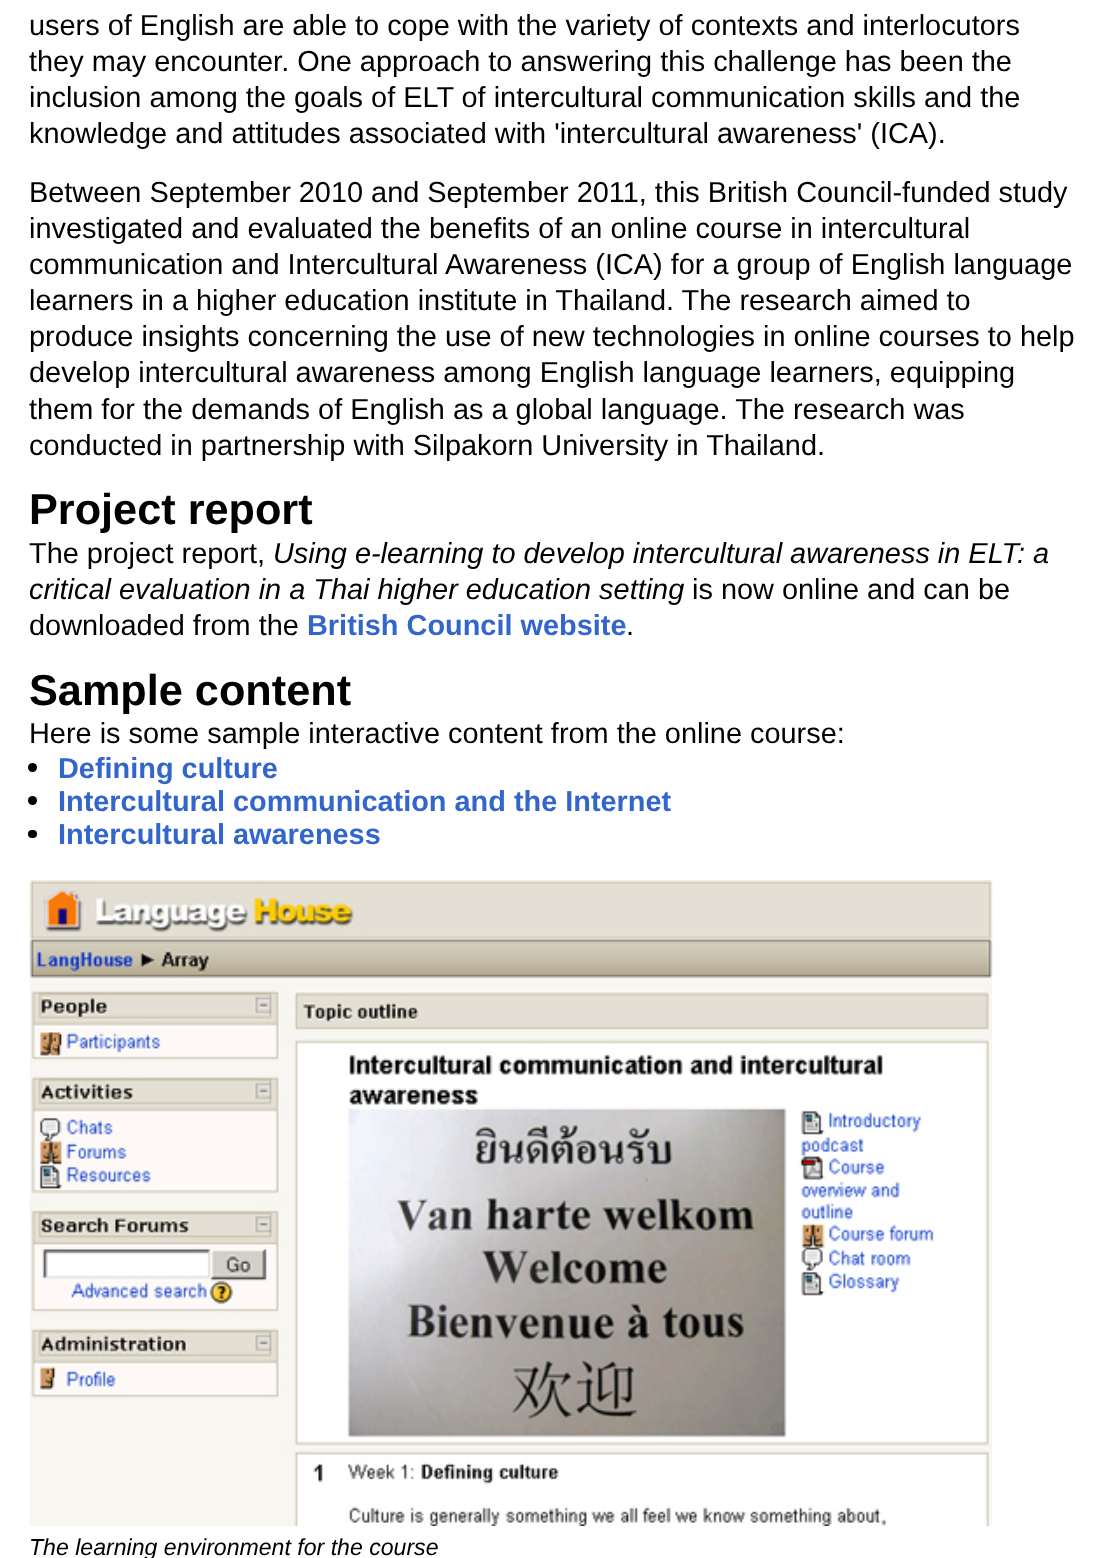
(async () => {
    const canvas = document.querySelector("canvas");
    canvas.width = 1109;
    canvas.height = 1558;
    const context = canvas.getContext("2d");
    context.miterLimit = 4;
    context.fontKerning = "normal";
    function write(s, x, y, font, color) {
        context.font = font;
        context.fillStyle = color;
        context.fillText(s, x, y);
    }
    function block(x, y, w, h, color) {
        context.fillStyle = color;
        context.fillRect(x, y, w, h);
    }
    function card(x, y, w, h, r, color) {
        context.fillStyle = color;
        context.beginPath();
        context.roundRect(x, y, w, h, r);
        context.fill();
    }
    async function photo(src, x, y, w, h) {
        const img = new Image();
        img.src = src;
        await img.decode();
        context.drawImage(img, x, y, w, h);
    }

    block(0, 0, 1109, 1558, "rgb(255, 255, 255)");
    write("users of English are able to cope with the variety of contexts and interlocutors", 29, 35, "28.9px Liberation Sans", "rgb(0, 0, 0)");
    write("they may encounter. One approach to answering this challenge has been the", 29, 71, "28.9px Liberation Sans", "rgb(0, 0, 0)");
    write("inclusion among the goals of ELT of intercultural communication skills and the", 29, 107, "28.9px Liberation Sans", "rgb(0, 0, 0)");
    write("knowledge and attitudes associated with 'intercultural awareness' (ICA).", 29, 143, "28.9px Liberation Sans", "rgb(0, 0, 0)");
    write("Between September 2010 and September 2011, this British Council-funded study", 29, 202, "28.9px Liberation Sans", "rgb(0, 0, 0)");
    write("investigated and evaluated the benefits of an online course in intercultural", 29, 238, "28.9px Liberation Sans", "rgb(0, 0, 0)");
    write("communication and Intercultural Awareness (ICA) for a group of English language", 29, 274, "28.9px Liberation Sans", "rgb(0, 0, 0)");
    write("learners in a higher education institute in Thailand. The research aimed to", 29, 310, "28.9px Liberation Sans", "rgb(0, 0, 0)");
    write("produce insights concerning the use of new technologies in online courses to help", 29, 346, "28.9px Liberation Sans", "rgb(0, 0, 0)");
    write("develop intercultural awareness among English language learners, equipping", 29, 382, "28.9px Liberation Sans", "rgb(0, 0, 0)");
    write("them for the demands of English as a global language. The research was", 29, 419, "28.9px Liberation Sans", "rgb(0, 0, 0)");
    write("conducted in partnership with Silpakorn University in Thailand.", 29, 455, "28.9px Liberation Sans", "rgb(0, 0, 0)");
    write("Project report", 29, 524, "bold 43.25px Liberation Sans", "rgb(0, 0, 0)");
    write("The project report,", 29, 563, "28.9px Liberation Sans", "rgb(0, 0, 0)");
    write("Using e-learning to develop intercultural awareness in ELT: a", 273, 563, "italic 28.9px Liberation Sans", "rgb(0, 0, 0)");
    write("critical evaluation in a Thai higher education setting", 29, 599, "italic 28.9px Liberation Sans", "rgb(0, 0, 0)");
    write("is now online and can be", 692, 599, "28.9px Liberation Sans", "rgb(0, 0, 0)");
    write("downloaded from the", 29, 635, "28.9px Liberation Sans", "rgb(0, 0, 0)");
    write("British Council website", 307, 635, "bold 28.9px Liberation Sans", "rgb(51, 102, 204)");
    write(".", 626, 635, "28.9px Liberation Sans", "rgb(0, 0, 0)");
    write("Sample content", 29, 705, "bold 43.25px Liberation Sans", "rgb(0, 0, 0)");
    write("Here is some sample interactive content from the online course:", 29, 743, "28.9px Liberation Sans", "rgb(0, 0, 0)");
    context.beginPath();
    context.arc(32.5, 767.5, 4.5, 0, Math.PI * 2);
    context.fill();
    write("Defining culture", 58, 778, "bold 28.9px Liberation Sans", "rgb(51, 102, 204)");
    context.fillStyle = "rgb(0, 0, 0)";
    context.beginPath();
    context.arc(32.5, 800.5, 4.5, 0, Math.PI * 2);
    context.fill();
    write("Intercultural communication and the Internet", 58, 811, "bold 28.9px Liberation Sans", "rgb(51, 102, 204)");
    card(28, 830, 9, 8, 4, "rgb(0, 0, 0)");
    write("Intercultural awareness", 58, 844, "bold 28.9px Liberation Sans", "rgb(51, 102, 204)");
    await photo("media/1.png", 29, 880, 964, 646);
    write("The learning environment for the course", 29, 1555, "italic 23.1px Liberation Sans", "rgb(0, 0, 0)");
})();
